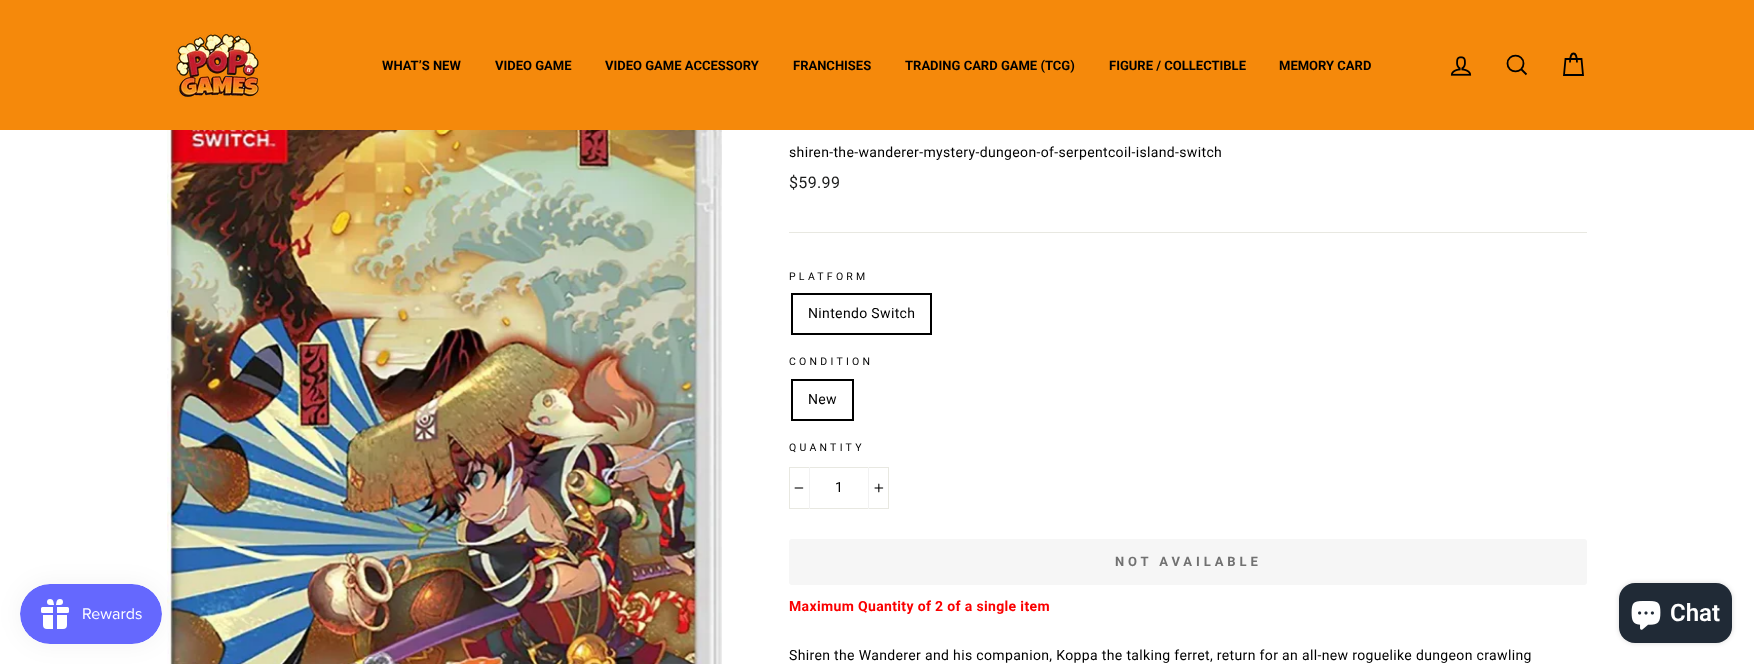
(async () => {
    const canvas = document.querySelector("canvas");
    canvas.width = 1754;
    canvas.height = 664;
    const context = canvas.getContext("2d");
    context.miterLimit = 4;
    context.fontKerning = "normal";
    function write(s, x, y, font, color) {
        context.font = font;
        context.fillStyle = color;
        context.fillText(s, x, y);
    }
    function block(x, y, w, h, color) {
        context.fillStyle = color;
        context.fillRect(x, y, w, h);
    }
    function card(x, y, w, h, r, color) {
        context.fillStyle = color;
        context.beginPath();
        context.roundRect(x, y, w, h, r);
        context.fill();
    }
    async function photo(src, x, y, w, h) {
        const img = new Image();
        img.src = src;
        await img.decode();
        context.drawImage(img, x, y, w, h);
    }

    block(0, 0, 1754, 664, "rgb(255, 255, 255)");
    await photo("media/4.png", 167, 130, 555, 534);
    context.fillStyle = "rgba(0, 0, 0, 0.05)";
    context.filter = "blur(12.5px)";
    context.beginPath();
    context.roundRect(20, 584, 142, 60, 30);
    context.fill();
    context.filter = "none";
    await photo("media/1.png", 20, 584, 142, 60);
    block(0, 0, 1754, 130, "rgb(245, 137, 11)");
    await photo("media/2.png", 176, 34, 83, 63);
    write("WHAT’S NEW", 382, 70, "bold 13px Roboto", "rgb(0, 0, 0)");
    write("VIDEO GAME", 495, 70, "bold 13px Roboto", "rgb(0, 0, 0)");
    write("VIDEO GAME ACCESSORY", 605, 70, "bold 13px Roboto", "rgb(0, 0, 0)");
    write("FRANCHISES", 793, 70, "bold 13px Roboto", "rgb(0, 0, 0)");
    write("TRADING CARD GAME (TCG)", 905, 70, "bold 13px Roboto", "rgb(0, 0, 0)");
    write("FIGURE / COLLECTIBLE", 1109, 70, "bold 13px Roboto", "rgb(0, 0, 0)");
    write("MEMORY CARD", 1279, 70, "bold 13px Roboto", "rgb(0, 0, 0)");
    await photo("media/3.png", 1450, 56, 22, 20);
    context.beginPath();
    context.moveTo(1523.5, 63.5);
    context.bezierCurveTo(1523.5, 74, 1507.5, 74, 1507.5, 63.5);
    context.bezierCurveTo(1507.5, 53, 1523.5, 53, 1523.5, 63.5);
    context.closePath();
    context.moveTo(1526.5, 74.5);
    context.lineTo(1521.5, 69.5);
    context.strokeStyle = "rgb(0, 0, 0)";
    context.lineWidth = 1.8;
    context.stroke();
    context.beginPath();
    context.moveTo(1570, 62.5);
    context.bezierCurveTo(1570, 50.5, 1577, 50.5, 1577, 62.5);
    context.moveTo(1565.5, 59);
    context.lineTo(1581.5, 59);
    context.lineTo(1583, 75);
    context.lineTo(1564, 75);
    context.closePath();
    context.stroke();
    context.letterSpacing = "0.35px";
    write("shiren-the-wanderer-mystery-dungeon-of-serpentcoil-island-switch", 789, 157, "14px Roboto", "rgb(0, 0, 0)");
    write("$59.99", 789, 188, "16px Roboto", "rgb(28, 29, 29)");
    block(789, 232, 798, 1, "rgb(232, 232, 225)");
    context.letterSpacing = "3.25px";
    write("PLATFORM", 789, 280, "10.5px Roboto", "rgb(0, 0, 0)");
    context.lineWidth = 2;
    context.strokeRect(792, 294, 139, 40);
    context.letterSpacing = "0.35px";
    write("Nintendo Switch", 808, 318, "14px Roboto", "rgb(0, 0, 0)");
    context.letterSpacing = "3.25px";
    write("CONDITION", 789, 365, "10.5px Roboto", "rgb(0, 0, 0)");
    context.strokeRect(792, 380, 61, 40);
    context.letterSpacing = "0.35px";
    write("New", 808, 404, "14px Roboto", "rgb(0, 0, 0)");
    context.letterSpacing = "3.25px";
    write("QUANTITY", 789, 451, "10.5px Roboto", "rgb(0, 0, 0)");
    context.strokeStyle = "rgb(232, 232, 225)";
    context.lineWidth = 1;
    context.strokeRect(789.5, 467.5, 99, 41);
    block(809, 467, 1, 42, "rgb(242, 242, 242)");
    await photo("media/5.png", 794, 487, 10, 2);
    context.letterSpacing = "0.35px";
    write("1", 835, 492, "14px Roboto", "rgb(0, 0, 0)");
    block(868, 467, 1, 42, "rgb(242, 242, 242)");
    await photo("media/6.png", 874, 483, 10, 10);
    card(789, 539, 798, 46, 3, "rgb(246, 246, 246)");
    context.letterSpacing = "3.9px";
    write("NOT AVAILABLE", 1115, 566, "bold 13px Roboto", "rgb(113, 113, 113)");
    context.letterSpacing = "0.35px";
    write("Maximum Quantity of 2 of a single item", 789, 611, "bold 14px Roboto", "rgb(250, 0, 0)");
    write("Shiren the Wanderer and his companion, Koppa the talking ferret, return for an all-new roguelike dungeon crawling", 789, 660, "14px Roboto", "rgb(0, 0, 0)");
    context.fillStyle = "rgba(0, 0, 0, 0.15)";
    context.filter = "blur(2.5px)";
    context.beginPath();
    context.roundRect(1619, 583, 113, 60, 16);
    context.fill();
    context.filter = "none";
    card(1619, 583, 113, 60, 16, "rgb(32, 42, 54)");
    await photo("media/7.png", 1631, 601, 30, 29);
    context.letterSpacing = "0px";
    write("Chat", 1670, 621, "600 24px Roboto", "rgb(255, 255, 255)");
})();
